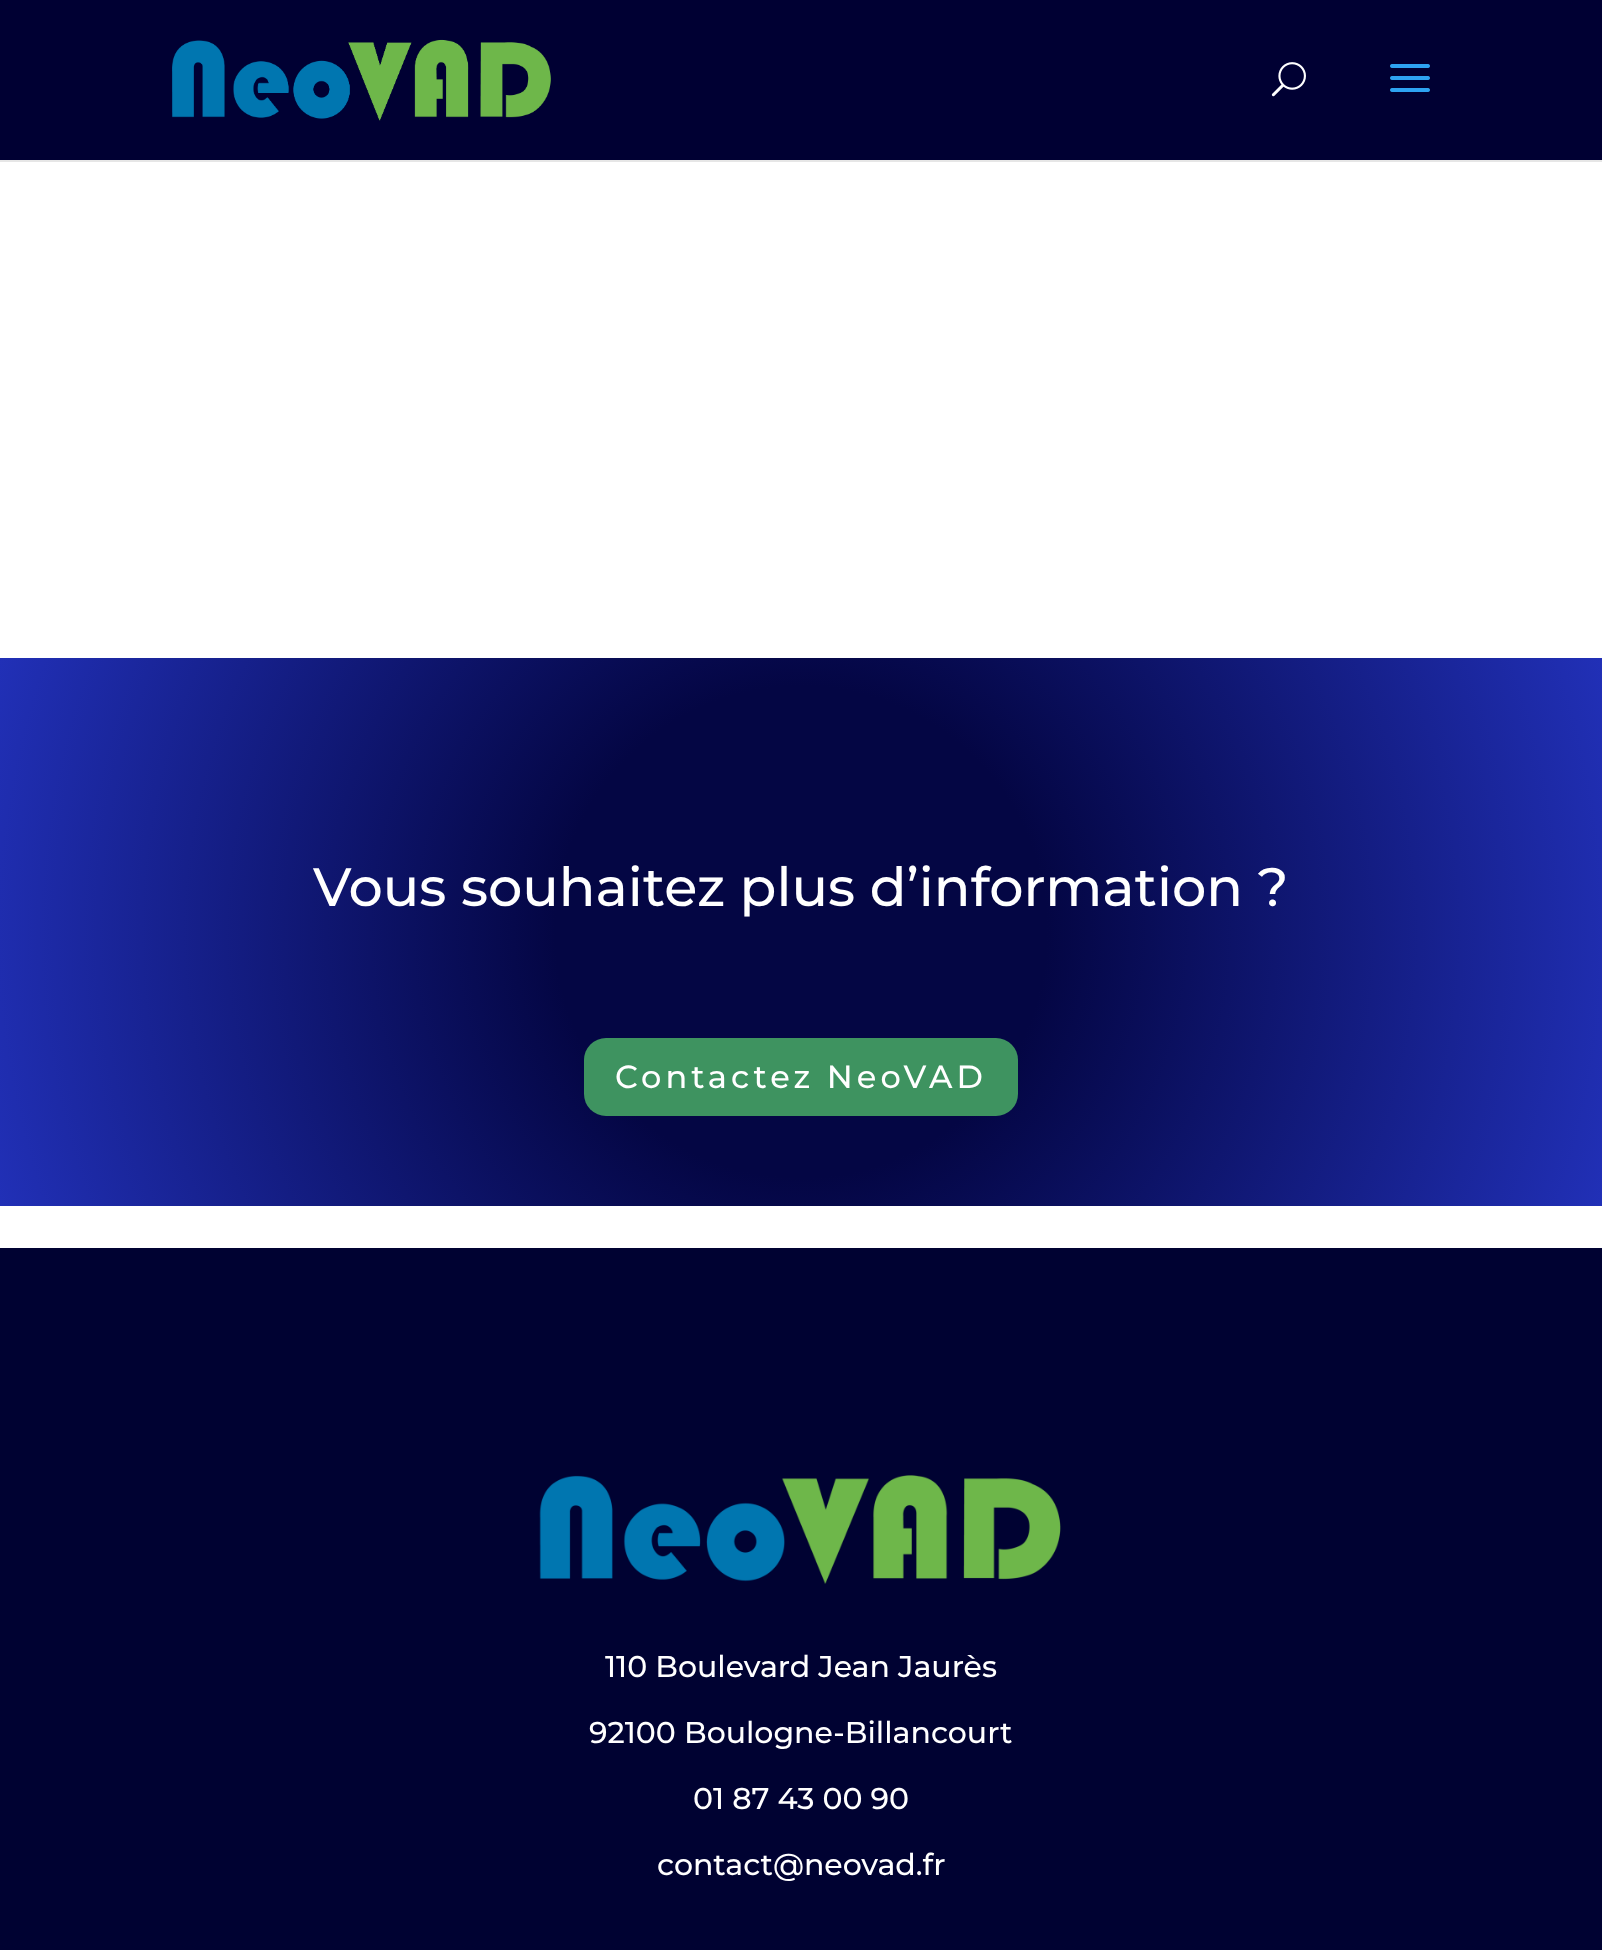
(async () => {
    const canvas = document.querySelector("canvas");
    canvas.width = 1602;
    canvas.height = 1950;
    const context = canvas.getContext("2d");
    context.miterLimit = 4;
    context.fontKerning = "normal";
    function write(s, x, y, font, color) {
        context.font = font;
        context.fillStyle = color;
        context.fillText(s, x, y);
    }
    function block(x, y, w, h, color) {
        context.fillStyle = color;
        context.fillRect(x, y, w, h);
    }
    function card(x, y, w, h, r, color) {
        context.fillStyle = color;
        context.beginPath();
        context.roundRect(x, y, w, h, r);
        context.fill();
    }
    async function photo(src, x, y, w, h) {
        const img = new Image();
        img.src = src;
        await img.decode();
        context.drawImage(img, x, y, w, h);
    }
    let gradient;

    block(0, 0, 1602, 1950, "rgb(255, 255, 255)");
    block(0, 160, 1602, 2, "rgb(230, 230, 230)");
    block(0, 0, 1602, 160, "rgb(0, 0, 51)");
    await photo("media/1.png", 172, 39, 379, 82);
    await photo("media/2.png", 1271, 62, 35, 35);
    await photo("media/3.png", 1390, 64, 40, 28);
    gradient = context.createRadialGradient(801, 932, 0, 801, 932, 847);
    gradient.addColorStop(0.29, "rgb(4, 6, 68)");
    gradient.addColorStop(1, "rgb(33, 48, 183)");
    context.fillStyle = gradient;
    context.fillRect(0, 658, 1602, 548);
    write("Vous souhaitez plus d’information ?", 313, 906, "100 54px Montserrat", "rgb(255, 255, 255)");
    card(584, 1038, 434, 78, 22, "rgb(62, 147, 96)");
    context.letterSpacing = "4px";
    write("Contactez NeoVAD", 615, 1088, "100 32px Montserrat", "rgb(255, 255, 255)");
    block(0, 1248, 1602, 702, "rgb(0, 2, 50)");
    await photo("media/4.png", 539, 1475, 522, 109);
    context.letterSpacing = "0px";
    write("110 Boulevard Jean Jaurès", 605, 1677, "100 30px Montserrat", "rgb(255, 255, 255)");
    write("92100 Boulogne-Billancourt", 589, 1743, "100 30px Montserrat", "rgb(255, 255, 255)");
    write("01 87 43 00 90", 693, 1809, "100 30px Montserrat", "rgb(255, 255, 255)");
    write("contact@neovad.fr", 657, 1875, "100 30px Montserrat", "rgb(255, 255, 255)");
})();
